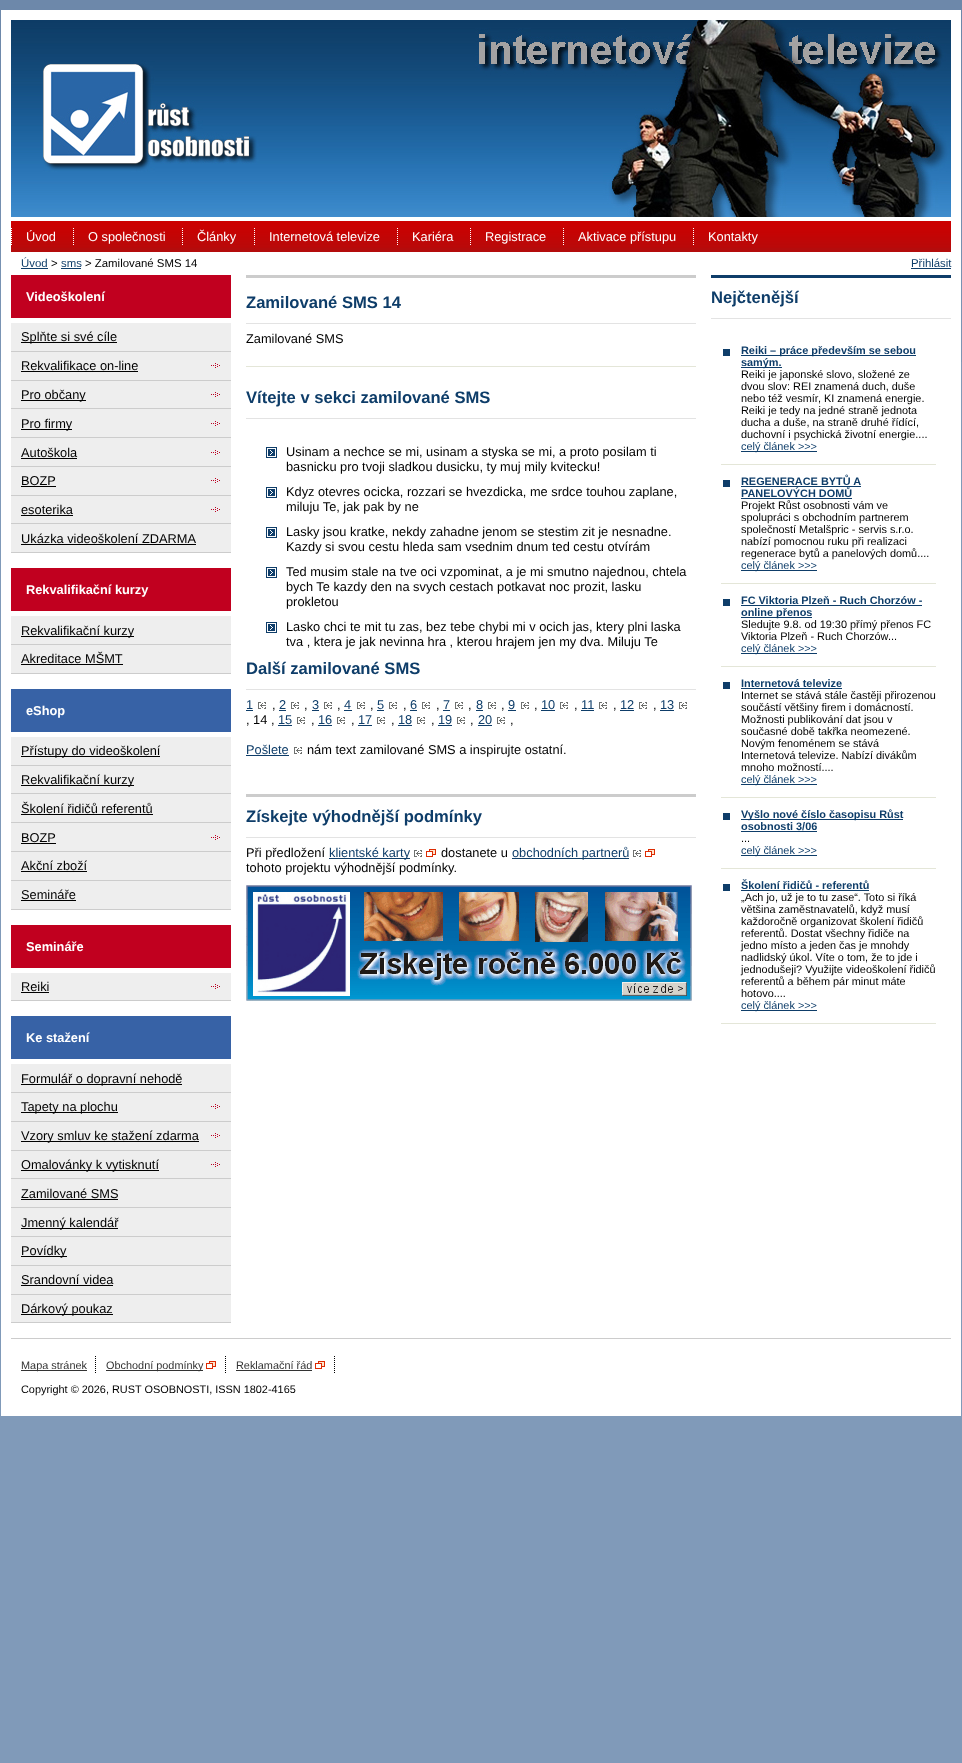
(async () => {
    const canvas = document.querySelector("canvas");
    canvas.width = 962;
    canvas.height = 1763;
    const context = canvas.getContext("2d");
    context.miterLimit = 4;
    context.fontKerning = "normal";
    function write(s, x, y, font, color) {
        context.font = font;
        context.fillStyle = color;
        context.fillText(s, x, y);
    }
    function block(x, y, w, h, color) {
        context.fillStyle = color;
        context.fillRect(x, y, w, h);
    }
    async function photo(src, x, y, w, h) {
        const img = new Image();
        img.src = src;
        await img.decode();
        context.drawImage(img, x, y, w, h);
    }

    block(0, 0, 962, 1763, "rgb(128, 154, 185)");
    await photo("media/1.png", 0, 0, 962, 10);
    await photo("media/2.png", 0, 10, 962, 352);
    block(1, 10, 960, 1406, "rgb(255, 255, 255)");
    await photo("media/3.png", 11, 20, 940, 197);
    block(11, 248, 940, 4, "rgb(180, 12, 12)");
    await photo("media/4.png", 11, 221, 940, 27);
    await photo("media/5.png", 11, 228, 1, 17);
    write("Úvod", 26, 241, "12.8px Liberation Sans", "rgb(255, 255, 255)");
    await photo("media/5.png", 73, 228, 1, 17);
    write("O společnosti", 88, 241, "12.8px Liberation Sans", "rgb(255, 255, 255)");
    await photo("media/5.png", 182, 228, 1, 17);
    write("Články", 197, 241, "12.8px Liberation Sans", "rgb(255, 255, 255)");
    await photo("media/5.png", 254, 228, 1, 17);
    write("Internetová televize", 269, 241, "12.8px Liberation Sans", "rgb(255, 255, 255)");
    await photo("media/5.png", 397, 228, 1, 17);
    write("Kariéra", 412, 241, "12.8px Liberation Sans", "rgb(255, 255, 255)");
    await photo("media/5.png", 470, 228, 1, 17);
    write("Registrace", 485, 241, "12.8px Liberation Sans", "rgb(255, 255, 255)");
    await photo("media/5.png", 563, 228, 1, 17);
    write("Aktivace přístupu", 578, 241, "12.8px Liberation Sans", "rgb(255, 255, 255)");
    await photo("media/5.png", 693, 228, 1, 17);
    write("Kontakty", 708, 241, "12.8px Liberation Sans", "rgb(255, 255, 255)");
    write("Úvod", 21, 267, "11.4px Liberation Sans", "rgb(14, 61, 105)");
    block(21, 268, 27, 1, "rgb(14, 61, 105)");
    write(">", 51, 267, "11.4px Liberation Sans", "rgb(0, 0, 0)");
    write("sms", 61, 267, "11.4px Liberation Sans", "rgb(14, 61, 105)");
    block(61, 268, 20, 1, "rgb(14, 61, 105)");
    write("> Zamilované SMS 14", 85, 267, "11.4px Liberation Sans", "rgb(0, 0, 0)");
    write("Přihlásit", 911, 267, "11.4px Liberation Sans", "rgb(14, 61, 105)");
    block(911, 268, 40, 1, "rgb(14, 61, 105)");
    block(11, 275, 220, 43, "rgb(193, 0, 31)");
    write("Videoškolení", 26, 301, "bold 12.8px Liberation Sans", "rgb(255, 255, 255)");
    block(11, 323, 220, 28, "rgb(238, 238, 238)");
    block(11, 351, 220, 1, "rgb(204, 204, 204)");
    block(21, 342, 96, 1, "rgb(0, 0, 0)");
    write("Splňte si své cíle", 21, 341, "12.8px Liberation Sans", "rgb(0, 0, 0)");
    block(11, 352, 220, 28, "rgb(238, 238, 238)");
    await photo("media/6.png", 211, 363, 9, 5);
    block(11, 380, 220, 1, "rgb(204, 204, 204)");
    write("Rekvalifikace on-line", 21, 370, "12.8px Liberation Sans", "rgb(0, 0, 0)");
    block(21, 371, 117, 1, "rgb(0, 0, 0)");
    block(11, 381, 220, 27, "rgb(238, 238, 238)");
    await photo("media/6.png", 211, 392, 9, 5);
    block(11, 408, 220, 1, "rgb(204, 204, 204)");
    block(21, 400, 65, 1, "rgb(0, 0, 0)");
    write("Pro občany", 21, 399, "12.8px Liberation Sans", "rgb(0, 0, 0)");
    block(11, 409, 220, 28, "rgb(238, 238, 238)");
    await photo("media/6.png", 211, 421, 9, 5);
    block(11, 437, 220, 1, "rgb(204, 204, 204)");
    block(21, 429, 51, 1, "rgb(0, 0, 0)");
    write("Pro firmy", 21, 428, "12.8px Liberation Sans", "rgb(0, 0, 0)");
    block(11, 438, 220, 28, "rgb(238, 238, 238)");
    await photo("media/6.png", 211, 450, 9, 5);
    block(11, 466, 220, 1, "rgb(204, 204, 204)");
    write("Autoškola", 21, 457, "12.8px Liberation Sans", "rgb(0, 0, 0)");
    block(21, 458, 56, 1, "rgb(0, 0, 0)");
    block(11, 467, 220, 28, "rgb(238, 238, 238)");
    await photo("media/6.png", 211, 478, 9, 5);
    block(11, 495, 220, 1, "rgb(204, 204, 204)");
    write("BOZP", 21, 485, "12.8px Liberation Sans", "rgb(0, 0, 0)");
    block(21, 486, 35, 1, "rgb(0, 0, 0)");
    block(11, 496, 220, 27, "rgb(238, 238, 238)");
    await photo("media/6.png", 211, 507, 9, 5);
    block(11, 523, 220, 1, "rgb(204, 204, 204)");
    write("esoterika", 21, 514, "12.8px Liberation Sans", "rgb(0, 0, 0)");
    block(21, 515, 52, 1, "rgb(0, 0, 0)");
    block(11, 524, 220, 28, "rgb(238, 238, 238)");
    block(11, 552, 220, 1, "rgb(204, 204, 204)");
    write("Ukázka videoškolení ZDARMA", 21, 543, "12.8px Liberation Sans", "rgb(0, 0, 0)");
    block(21, 544, 175, 1, "rgb(0, 0, 0)");
    block(11, 568, 220, 43, "rgb(193, 0, 31)");
    write("Rekvalifikační kurzy", 26, 594, "bold 12.8px Liberation Sans", "rgb(255, 255, 255)");
    block(11, 616, 220, 28, "rgb(238, 238, 238)");
    block(11, 644, 220, 1, "rgb(204, 204, 204)");
    block(21, 636, 113, 1, "rgb(0, 0, 0)");
    write("Rekvalifikační kurzy", 21, 635, "12.8px Liberation Sans", "rgb(0, 0, 0)");
    block(11, 645, 220, 28, "rgb(238, 238, 238)");
    block(11, 673, 220, 1, "rgb(204, 204, 204)");
    write("Akreditace MŠMT", 21, 663, "12.8px Liberation Sans", "rgb(0, 0, 0)");
    block(21, 664, 102, 1, "rgb(0, 0, 0)");
    block(11, 689, 220, 43, "rgb(55, 98, 166)");
    write("eShop", 26, 715, "bold 12.8px Liberation Sans", "rgb(255, 255, 255)");
    block(11, 737, 220, 28, "rgb(238, 238, 238)");
    block(11, 765, 220, 1, "rgb(204, 204, 204)");
    block(21, 756, 139, 1, "rgb(0, 0, 0)");
    write("Přístupy do videoškolení", 21, 755, "12.8px Liberation Sans", "rgb(0, 0, 0)");
    block(11, 766, 220, 27, "rgb(238, 238, 238)");
    block(11, 793, 220, 1, "rgb(204, 204, 204)");
    block(21, 785, 113, 1, "rgb(0, 0, 0)");
    write("Rekvalifikační kurzy", 21, 784, "12.8px Liberation Sans", "rgb(0, 0, 0)");
    block(11, 794, 220, 28, "rgb(238, 238, 238)");
    block(11, 822, 220, 1, "rgb(204, 204, 204)");
    write("Školení řidičů referentů", 21, 813, "12.8px Liberation Sans", "rgb(0, 0, 0)");
    block(21, 814, 132, 1, "rgb(0, 0, 0)");
    block(11, 823, 220, 28, "rgb(238, 238, 238)");
    await photo("media/6.png", 211, 835, 9, 5);
    block(11, 851, 220, 1, "rgb(204, 204, 204)");
    write("BOZP", 21, 842, "12.8px Liberation Sans", "rgb(0, 0, 0)");
    block(21, 843, 35, 1, "rgb(0, 0, 0)");
    block(11, 852, 220, 28, "rgb(238, 238, 238)");
    block(11, 880, 220, 1, "rgb(204, 204, 204)");
    write("Akční zboží", 21, 870, "12.8px Liberation Sans", "rgb(0, 0, 0)");
    block(21, 871, 66, 1, "rgb(0, 0, 0)");
    block(11, 881, 220, 28, "rgb(238, 238, 238)");
    block(11, 909, 220, 1, "rgb(204, 204, 204)");
    write("Semináře", 21, 899, "12.8px Liberation Sans", "rgb(0, 0, 0)");
    block(21, 900, 55, 1, "rgb(0, 0, 0)");
    block(11, 925, 220, 43, "rgb(193, 0, 31)");
    write("Semináře", 26, 951, "bold 12.8px Liberation Sans", "rgb(255, 255, 255)");
    block(11, 973, 220, 27, "rgb(238, 238, 238)");
    await photo("media/6.png", 211, 984, 9, 5);
    block(11, 1000, 220, 1, "rgb(204, 204, 204)");
    write("Reiki", 21, 991, "12.8px Liberation Sans", "rgb(0, 0, 0)");
    block(21, 992, 28, 1, "rgb(0, 0, 0)");
    block(11, 1016, 220, 43, "rgb(55, 98, 166)");
    write("Ke stažení", 26, 1042, "bold 12.8px Liberation Sans", "rgb(255, 255, 255)");
    block(11, 1064, 220, 28, "rgb(238, 238, 238)");
    block(11, 1092, 220, 1, "rgb(204, 204, 204)");
    block(21, 1084, 161, 1, "rgb(0, 0, 0)");
    write("Formulář o dopravní nehodě", 21, 1083, "12.8px Liberation Sans", "rgb(0, 0, 0)");
    block(11, 1093, 220, 28, "rgb(238, 238, 238)");
    await photo("media/6.png", 211, 1104, 9, 5);
    block(11, 1121, 220, 1, "rgb(204, 204, 204)");
    block(21, 1112, 97, 1, "rgb(0, 0, 0)");
    write("Tapety na plochu", 21, 1111, "12.8px Liberation Sans", "rgb(0, 0, 0)");
    block(11, 1122, 220, 28, "rgb(238, 238, 238)");
    await photo("media/6.png", 211, 1133, 9, 5);
    block(11, 1150, 220, 1, "rgb(204, 204, 204)");
    block(21, 1141, 178, 1, "rgb(0, 0, 0)");
    write("Vzory smluv ke stažení zdarma", 21, 1140, "12.8px Liberation Sans", "rgb(0, 0, 0)");
    block(11, 1151, 220, 27, "rgb(238, 238, 238)");
    await photo("media/6.png", 211, 1162, 9, 5);
    block(11, 1178, 220, 1, "rgb(204, 204, 204)");
    block(21, 1170, 138, 1, "rgb(0, 0, 0)");
    write("Omalovánky k vytisknutí", 21, 1169, "12.8px Liberation Sans", "rgb(0, 0, 0)");
    block(11, 1179, 220, 28, "rgb(238, 238, 238)");
    block(11, 1207, 220, 1, "rgb(204, 204, 204)");
    write("Zamilované SMS", 21, 1198, "12.8px Liberation Sans", "rgb(0, 0, 0)");
    block(21, 1199, 97, 1, "rgb(0, 0, 0)");
    block(11, 1208, 220, 28, "rgb(238, 238, 238)");
    block(11, 1236, 220, 1, "rgb(204, 204, 204)");
    block(21, 1228, 97, 1, "rgb(0, 0, 0)");
    write("Jmenný kalendář", 21, 1227, "12.8px Liberation Sans", "rgb(0, 0, 0)");
    block(11, 1237, 220, 28, "rgb(238, 238, 238)");
    block(11, 1265, 220, 1, "rgb(204, 204, 204)");
    block(21, 1256, 46, 1, "rgb(0, 0, 0)");
    write("Povídky", 21, 1255, "12.8px Liberation Sans", "rgb(0, 0, 0)");
    block(11, 1266, 220, 28, "rgb(238, 238, 238)");
    block(11, 1294, 220, 1, "rgb(204, 204, 204)");
    write("Srandovní videa", 21, 1284, "12.8px Liberation Sans", "rgb(0, 0, 0)");
    block(21, 1285, 92, 1, "rgb(0, 0, 0)");
    block(11, 1295, 220, 27, "rgb(238, 238, 238)");
    block(11, 1322, 220, 1, "rgb(204, 204, 204)");
    block(21, 1314, 92, 1, "rgb(0, 0, 0)");
    write("Dárkový poukaz", 21, 1313, "12.8px Liberation Sans", "rgb(0, 0, 0)");
    block(246, 275, 450, 3, "rgb(204, 204, 204)");
    block(246, 366, 450, 1, "rgb(228, 230, 216)");
    block(246, 323, 450, 1, "rgb(227, 227, 227)");
    write("Zamilované SMS 14", 246, 308, "bold 16.6px Liberation Sans", "rgb(14, 61, 105)");
    write("Zamilované SMS", 246, 343, "12.8px Liberation Sans", "rgb(0, 0, 0)");
    block(246, 418, 450, 1, "rgb(227, 227, 227)");
    write("Vítejte v sekci zamilované SMS", 246, 403, "bold 16.6px Liberation Sans", "rgb(14, 61, 105)");
    await photo("media/7.png", 266, 447, 11, 11);
    write("Usinam a nechce se mi, usinam a styska se mi, a proto posilam ti", 286, 456, "12.8px Liberation Sans", "rgb(0, 0, 0)");
    write("basnicku pro tvoji sladkou dusicku, ty muj mily kvitecku!", 286, 471, "12.8px Liberation Sans", "rgb(0, 0, 0)");
    await photo("media/7.png", 266, 487, 11, 11);
    write("Kdyz otevres ocicka, rozzari se hvezdicka, me srdce touhou zaplane,", 286, 496, "12.8px Liberation Sans", "rgb(0, 0, 0)");
    write("miluju Te, jak pak by ne", 286, 511, "12.8px Liberation Sans", "rgb(0, 0, 0)");
    await photo("media/7.png", 266, 527, 11, 11);
    write("Lasky jsou kratke, nekdy zahadne jenom se stestim zit je nesnadne.", 286, 536, "12.8px Liberation Sans", "rgb(0, 0, 0)");
    write("Kazdy si svou cestu hleda sam vsednim dnum ted cestu otvírám", 286, 551, "12.8px Liberation Sans", "rgb(0, 0, 0)");
    await photo("media/7.png", 266, 567, 11, 11);
    write("Ted musim stale na tve oci vzpominat, a je mi smutno najednou, chtela", 286, 576, "12.8px Liberation Sans", "rgb(0, 0, 0)");
    write("bych Te kazdy den na svych cestach potkavat noc prozit, lasku", 286, 591, "12.8px Liberation Sans", "rgb(0, 0, 0)");
    write("prokletou", 286, 606, "12.8px Liberation Sans", "rgb(0, 0, 0)");
    await photo("media/7.png", 266, 622, 11, 11);
    write("Lasko chci te mit tu zas, bez tebe chybi mi v ocich jas, ktery plni laska", 286, 631, "12.8px Liberation Sans", "rgb(0, 0, 0)");
    write("tva , ktera je jak nevinna hra , kterou hrajem jen my dva. Miluju Te", 286, 646, "12.8px Liberation Sans", "rgb(0, 0, 0)");
    block(246, 689, 450, 1, "rgb(227, 227, 227)");
    write("Další zamilované SMS", 246, 674, "bold 16.6px Liberation Sans", "rgb(14, 61, 105)");
    write("1", 246, 709, "12.8px Liberation Sans", "rgb(14, 61, 105)");
    block(246, 710, 7, 1, "rgb(14, 61, 105)");
    await photo("media/8.png", 258, 702, 8, 7);
    write(",", 272, 709, "12.8px Liberation Sans", "rgb(0, 0, 0)");
    write("2", 279, 709, "12.8px Liberation Sans", "rgb(14, 61, 105)");
    block(279, 710, 7, 1, "rgb(14, 61, 105)");
    await photo("media/8.png", 291, 702, 8, 7);
    write(",", 304, 709, "12.8px Liberation Sans", "rgb(0, 0, 0)");
    write("3", 312, 709, "12.8px Liberation Sans", "rgb(14, 61, 105)");
    block(312, 710, 7, 1, "rgb(14, 61, 105)");
    await photo("media/8.png", 324, 702, 8, 7);
    write(",", 337, 709, "12.8px Liberation Sans", "rgb(0, 0, 0)");
    write("4", 344, 709, "12.8px Liberation Sans", "rgb(14, 61, 105)");
    block(344, 710, 8, 1, "rgb(14, 61, 105)");
    await photo("media/8.png", 357, 702, 8, 7);
    write(",", 370, 709, "12.8px Liberation Sans", "rgb(0, 0, 0)");
    write("5", 377, 709, "12.8px Liberation Sans", "rgb(14, 61, 105)");
    block(377, 710, 7, 1, "rgb(14, 61, 105)");
    await photo("media/8.png", 389, 702, 8, 7);
    write(",", 403, 709, "12.8px Liberation Sans", "rgb(0, 0, 0)");
    write("6", 410, 709, "12.8px Liberation Sans", "rgb(14, 61, 105)");
    block(410, 710, 7, 1, "rgb(14, 61, 105)");
    await photo("media/8.png", 422, 702, 8, 7);
    write(",", 436, 709, "12.8px Liberation Sans", "rgb(0, 0, 0)");
    write("7", 443, 709, "12.8px Liberation Sans", "rgb(14, 61, 105)");
    block(443, 710, 7, 1, "rgb(14, 61, 105)");
    await photo("media/8.png", 455, 702, 8, 7);
    write(",", 468, 709, "12.8px Liberation Sans", "rgb(0, 0, 0)");
    write("8", 476, 709, "12.8px Liberation Sans", "rgb(14, 61, 105)");
    block(476, 710, 7, 1, "rgb(14, 61, 105)");
    await photo("media/8.png", 488, 702, 8, 7);
    write(",", 501, 709, "12.8px Liberation Sans", "rgb(0, 0, 0)");
    write("9", 508, 709, "12.8px Liberation Sans", "rgb(14, 61, 105)");
    block(508, 710, 8, 1, "rgb(14, 61, 105)");
    await photo("media/8.png", 521, 702, 8, 7);
    write(",", 534, 709, "12.8px Liberation Sans", "rgb(0, 0, 0)");
    write("10", 541, 709, "12.8px Liberation Sans", "rgb(14, 61, 105)");
    block(541, 710, 14, 1, "rgb(14, 61, 105)");
    await photo("media/8.png", 560, 702, 8, 7);
    write(",", 574, 709, "12.8px Liberation Sans", "rgb(0, 0, 0)");
    write("11", 581, 709, "12.8px Liberation Sans", "rgb(14, 61, 105)");
    block(581, 710, 13, 1, "rgb(14, 61, 105)");
    await photo("media/8.png", 599, 702, 8, 7);
    write(",", 613, 709, "12.8px Liberation Sans", "rgb(0, 0, 0)");
    write("12", 620, 709, "12.8px Liberation Sans", "rgb(14, 61, 105)");
    block(620, 710, 14, 1, "rgb(14, 61, 105)");
    await photo("media/8.png", 639, 702, 8, 7);
    write(",", 653, 709, "12.8px Liberation Sans", "rgb(0, 0, 0)");
    write("13", 660, 709, "12.8px Liberation Sans", "rgb(14, 61, 105)");
    block(660, 710, 14, 1, "rgb(14, 61, 105)");
    await photo("media/8.png", 679, 702, 8, 7);
    write(", 14 ,", 246, 724, "12.8px Liberation Sans", "rgb(0, 0, 0)");
    write("15", 278, 724, "12.8px Liberation Sans", "rgb(14, 61, 105)");
    block(278, 725, 14, 1, "rgb(14, 61, 105)");
    await photo("media/8.png", 297, 717, 8, 7);
    write(",", 311, 724, "12.8px Liberation Sans", "rgb(0, 0, 0)");
    write("16", 318, 724, "12.8px Liberation Sans", "rgb(14, 61, 105)");
    block(318, 725, 14, 1, "rgb(14, 61, 105)");
    await photo("media/8.png", 337, 717, 8, 7);
    write(",", 351, 724, "12.8px Liberation Sans", "rgb(0, 0, 0)");
    write("17", 358, 724, "12.8px Liberation Sans", "rgb(14, 61, 105)");
    block(358, 725, 14, 1, "rgb(14, 61, 105)");
    await photo("media/8.png", 377, 717, 8, 7);
    write(",", 391, 724, "12.8px Liberation Sans", "rgb(0, 0, 0)");
    write("18", 398, 724, "12.8px Liberation Sans", "rgb(14, 61, 105)");
    block(398, 725, 14, 1, "rgb(14, 61, 105)");
    await photo("media/8.png", 417, 717, 8, 7);
    write(",", 431, 724, "12.8px Liberation Sans", "rgb(0, 0, 0)");
    write("19", 438, 724, "12.8px Liberation Sans", "rgb(14, 61, 105)");
    block(438, 725, 14, 1, "rgb(14, 61, 105)");
    await photo("media/8.png", 457, 717, 8, 7);
    write(",", 470, 724, "12.8px Liberation Sans", "rgb(0, 0, 0)");
    write("20", 478, 724, "12.8px Liberation Sans", "rgb(14, 61, 105)");
    block(478, 725, 14, 1, "rgb(14, 61, 105)");
    await photo("media/8.png", 497, 717, 8, 7);
    write(",", 510, 724, "12.8px Liberation Sans", "rgb(0, 0, 0)");
    write("Pošlete", 246, 754, "12.8px Liberation Sans", "rgb(14, 61, 105)");
    block(246, 755, 43, 1, "rgb(14, 61, 105)");
    await photo("media/8.png", 294, 747, 8, 7);
    write("nám text zamilované SMS a inspirujte ostatní.", 307, 754, "12.8px Liberation Sans", "rgb(0, 0, 0)");
    block(246, 794, 450, 3, "rgb(204, 204, 204)");
    block(246, 837, 450, 1, "rgb(227, 227, 227)");
    write("Získejte výhodnější podmínky", 246, 822, "bold 16.6px Liberation Sans", "rgb(14, 61, 105)");
    write("Při předložení", 246, 857, "12.8px Liberation Sans", "rgb(0, 0, 0)");
    block(329, 858, 81, 1, "rgb(14, 61, 105)");
    write("klientské karty", 329, 857, "12.8px Liberation Sans", "rgb(14, 61, 105)");
    await photo("media/9.png", 414, 849, 22, 8);
    write("dostanete u", 441, 857, "12.8px Liberation Sans", "rgb(0, 0, 0)");
    block(512, 858, 117, 1, "rgb(14, 61, 105)");
    write("obchodních partnerů", 512, 857, "12.8px Liberation Sans", "rgb(14, 61, 105)");
    await photo("media/9.png", 633, 849, 22, 8);
    write("tohoto projektu výhodnější podmínky.", 246, 872, "12.8px Liberation Sans", "rgb(0, 0, 0)");
    await photo("media/10.png", 246, 885, 446, 116);
    block(711, 275, 240, 3, "rgb(14, 61, 105)");
    block(711, 318, 240, 1, "rgb(227, 227, 227)");
    write("Nejčtenější", 711, 303, "bold 16.6px Liberation Sans", "rgb(14, 61, 105)");
    block(723, 349, 7, 7, "rgb(14, 61, 105)");
    block(721, 464, 215, 1, "rgb(228, 230, 216)");
    block(741, 355, 175, 1, "rgb(14, 61, 105)");
    write("Reiki – práce především se sebou", 741, 354, "bold 10.9px Liberation Sans", "rgb(14, 61, 105)");
    block(741, 367, 41, 1, "rgb(14, 61, 105)");
    write("samým.", 741, 366, "bold 10.9px Liberation Sans", "rgb(14, 61, 105)");
    write("Reiki je japonské slovo, složené ze", 741, 378, "10.9px Liberation Sans", "rgb(0, 0, 0)");
    write("dvou slov: REI znamená duch, duše", 741, 390, "10.9px Liberation Sans", "rgb(0, 0, 0)");
    write("nebo též vesmír, KI znamená energie.", 741, 402, "10.9px Liberation Sans", "rgb(0, 0, 0)");
    write("Reiki je tedy na jedné straně jednota", 741, 414, "10.9px Liberation Sans", "rgb(0, 0, 0)");
    write("ducha a duše, na straně druhé řídící,", 741, 426, "10.9px Liberation Sans", "rgb(0, 0, 0)");
    write("duchovní i psychická životní energie....", 741, 438, "10.9px Liberation Sans", "rgb(0, 0, 0)");
    block(741, 451, 76, 1, "rgb(14, 61, 105)");
    write("celý článek >>>", 741, 450, "10.9px Liberation Sans", "rgb(14, 61, 105)");
    block(723, 480, 7, 7, "rgb(14, 61, 105)");
    block(721, 583, 215, 1, "rgb(228, 230, 216)");
    write("REGENERACE BYTŮ A", 741, 485, "bold 10.9px Liberation Sans", "rgb(14, 61, 105)");
    block(741, 486, 120, 1, "rgb(14, 61, 105)");
    write("PANELOVÝCH DOMŮ", 741, 497, "bold 10.9px Liberation Sans", "rgb(14, 61, 105)");
    block(741, 498, 111, 1, "rgb(14, 61, 105)");
    write("Projekt Růst osobnosti vám ve", 741, 509, "10.9px Liberation Sans", "rgb(0, 0, 0)");
    write("spolupráci s obchodním partnerem", 741, 521, "10.9px Liberation Sans", "rgb(0, 0, 0)");
    write("společností Metalšpric - servis s.r.o.", 741, 533, "10.9px Liberation Sans", "rgb(0, 0, 0)");
    write("nabízí pomocnou ruku při realizaci", 741, 545, "10.9px Liberation Sans", "rgb(0, 0, 0)");
    write("regenerace bytů a panelových domů....", 741, 557, "10.9px Liberation Sans", "rgb(0, 0, 0)");
    block(741, 570, 76, 1, "rgb(14, 61, 105)");
    write("celý článek >>>", 741, 569, "10.9px Liberation Sans", "rgb(14, 61, 105)");
    block(723, 599, 7, 7, "rgb(14, 61, 105)");
    block(721, 666, 215, 1, "rgb(228, 230, 216)");
    write("FC Viktoria Plzeň - Ruch Chorzów -", 741, 604, "bold 10.9px Liberation Sans", "rgb(14, 61, 105)");
    block(741, 605, 181, 1, "rgb(14, 61, 105)");
    block(741, 617, 71, 1, "rgb(14, 61, 105)");
    write("online přenos", 741, 616, "bold 10.9px Liberation Sans", "rgb(14, 61, 105)");
    write("Sledujte 9.8. od 19:30 přímý přenos FC", 741, 628, "10.9px Liberation Sans", "rgb(0, 0, 0)");
    write("Viktoria Plzeň - Ruch Chorzów...", 741, 640, "10.9px Liberation Sans", "rgb(0, 0, 0)");
    block(741, 653, 76, 1, "rgb(14, 61, 105)");
    write("celý článek >>>", 741, 652, "10.9px Liberation Sans", "rgb(14, 61, 105)");
    block(723, 682, 7, 7, "rgb(14, 61, 105)");
    block(721, 797, 215, 1, "rgb(228, 230, 216)");
    write("Internetová televize", 741, 687, "bold 10.9px Liberation Sans", "rgb(14, 61, 105)");
    block(741, 688, 101, 1, "rgb(14, 61, 105)");
    write("Internet se stává stále častěji přirozenou", 741, 699, "10.9px Liberation Sans", "rgb(0, 0, 0)");
    write("součástí většiny firem i domácností.", 741, 711, "10.9px Liberation Sans", "rgb(0, 0, 0)");
    write("Možnosti publikování dat jsou v", 741, 723, "10.9px Liberation Sans", "rgb(0, 0, 0)");
    write("současné době takřka neomezené.", 741, 735, "10.9px Liberation Sans", "rgb(0, 0, 0)");
    write("Novým fenoménem se stává", 741, 747, "10.9px Liberation Sans", "rgb(0, 0, 0)");
    write("Internetová televize. Nabízí divákům", 741, 759, "10.9px Liberation Sans", "rgb(0, 0, 0)");
    write("mnoho možností....", 741, 771, "10.9px Liberation Sans", "rgb(0, 0, 0)");
    block(741, 784, 76, 1, "rgb(14, 61, 105)");
    write("celý článek >>>", 741, 783, "10.9px Liberation Sans", "rgb(14, 61, 105)");
    block(723, 813, 7, 7, "rgb(14, 61, 105)");
    block(721, 868, 215, 1, "rgb(228, 230, 216)");
    block(741, 819, 162, 1, "rgb(14, 61, 105)");
    write("Vyšlo nové číslo časopisu Růst", 741, 818, "bold 10.9px Liberation Sans", "rgb(14, 61, 105)");
    write("osobnosti 3/06", 741, 830, "bold 10.9px Liberation Sans", "rgb(14, 61, 105)");
    block(741, 831, 76, 1, "rgb(14, 61, 105)");
    write("...", 741, 842, "10.9px Liberation Sans", "rgb(0, 0, 0)");
    block(741, 855, 76, 1, "rgb(14, 61, 105)");
    write("celý článek >>>", 741, 854, "10.9px Liberation Sans", "rgb(14, 61, 105)");
    block(723, 884, 7, 7, "rgb(14, 61, 105)");
    block(721, 1023, 215, 1, "rgb(228, 230, 216)");
    write("Školení řidičů - referentů", 741, 889, "bold 10.9px Liberation Sans", "rgb(14, 61, 105)");
    block(741, 890, 128, 1, "rgb(14, 61, 105)");
    write("„Ach jo, už je to tu zase“. Toto si říká", 741, 901, "10.9px Liberation Sans", "rgb(0, 0, 0)");
    write("většina zaměstnavatelů, když musí", 741, 913, "10.9px Liberation Sans", "rgb(0, 0, 0)");
    write("každoročně organizovat školení řidičů", 741, 925, "10.9px Liberation Sans", "rgb(0, 0, 0)");
    write("referentů. Dostat všechny řidiče na", 741, 937, "10.9px Liberation Sans", "rgb(0, 0, 0)");
    write("jedno místo a jeden čas je mnohdy", 741, 949, "10.9px Liberation Sans", "rgb(0, 0, 0)");
    write("nadlidský úkol. Víte o tom, že to jde i", 741, 961, "10.9px Liberation Sans", "rgb(0, 0, 0)");
    write("jednodušeji? Využijte videoškolení řidičů", 741, 973, "10.9px Liberation Sans", "rgb(0, 0, 0)");
    write("referentů a během pár minut máte", 741, 985, "10.9px Liberation Sans", "rgb(0, 0, 0)");
    write("hotovo....", 741, 997, "10.9px Liberation Sans", "rgb(0, 0, 0)");
    block(741, 1010, 76, 1, "rgb(14, 61, 105)");
    write("celý článek >>>", 741, 1009, "10.9px Liberation Sans", "rgb(14, 61, 105)");
    block(11, 1338, 940, 1, "rgb(204, 204, 204)");
    await photo("media/11.png", 95, 1356, 1, 17);
    block(21, 1370, 66, 1, "rgb(51, 51, 51)");
    write("Mapa stránek", 21, 1369, "10.9px Liberation Sans", "rgb(51, 51, 51)");
    await photo("media/11.png", 225, 1356, 1, 17);
    await photo("media/12.png", 206, 1361, 10, 8);
    block(106, 1370, 97, 1, "rgb(51, 51, 51)");
    write("Obchodní podmínky", 106, 1369, "10.9px Liberation Sans", "rgb(51, 51, 51)");
    await photo("media/11.png", 334, 1356, 1, 17);
    await photo("media/12.png", 315, 1361, 10, 8);
    write("Reklamační řád", 236, 1369, "10.9px Liberation Sans", "rgb(51, 51, 51)");
    block(236, 1370, 76, 1, "rgb(51, 51, 51)");
    write("Copyright © 2026, RUST OSOBNOSTI, ISSN 1802-4165", 21, 1393, "10.9px Liberation Sans", "rgb(0, 0, 0)");
})();
